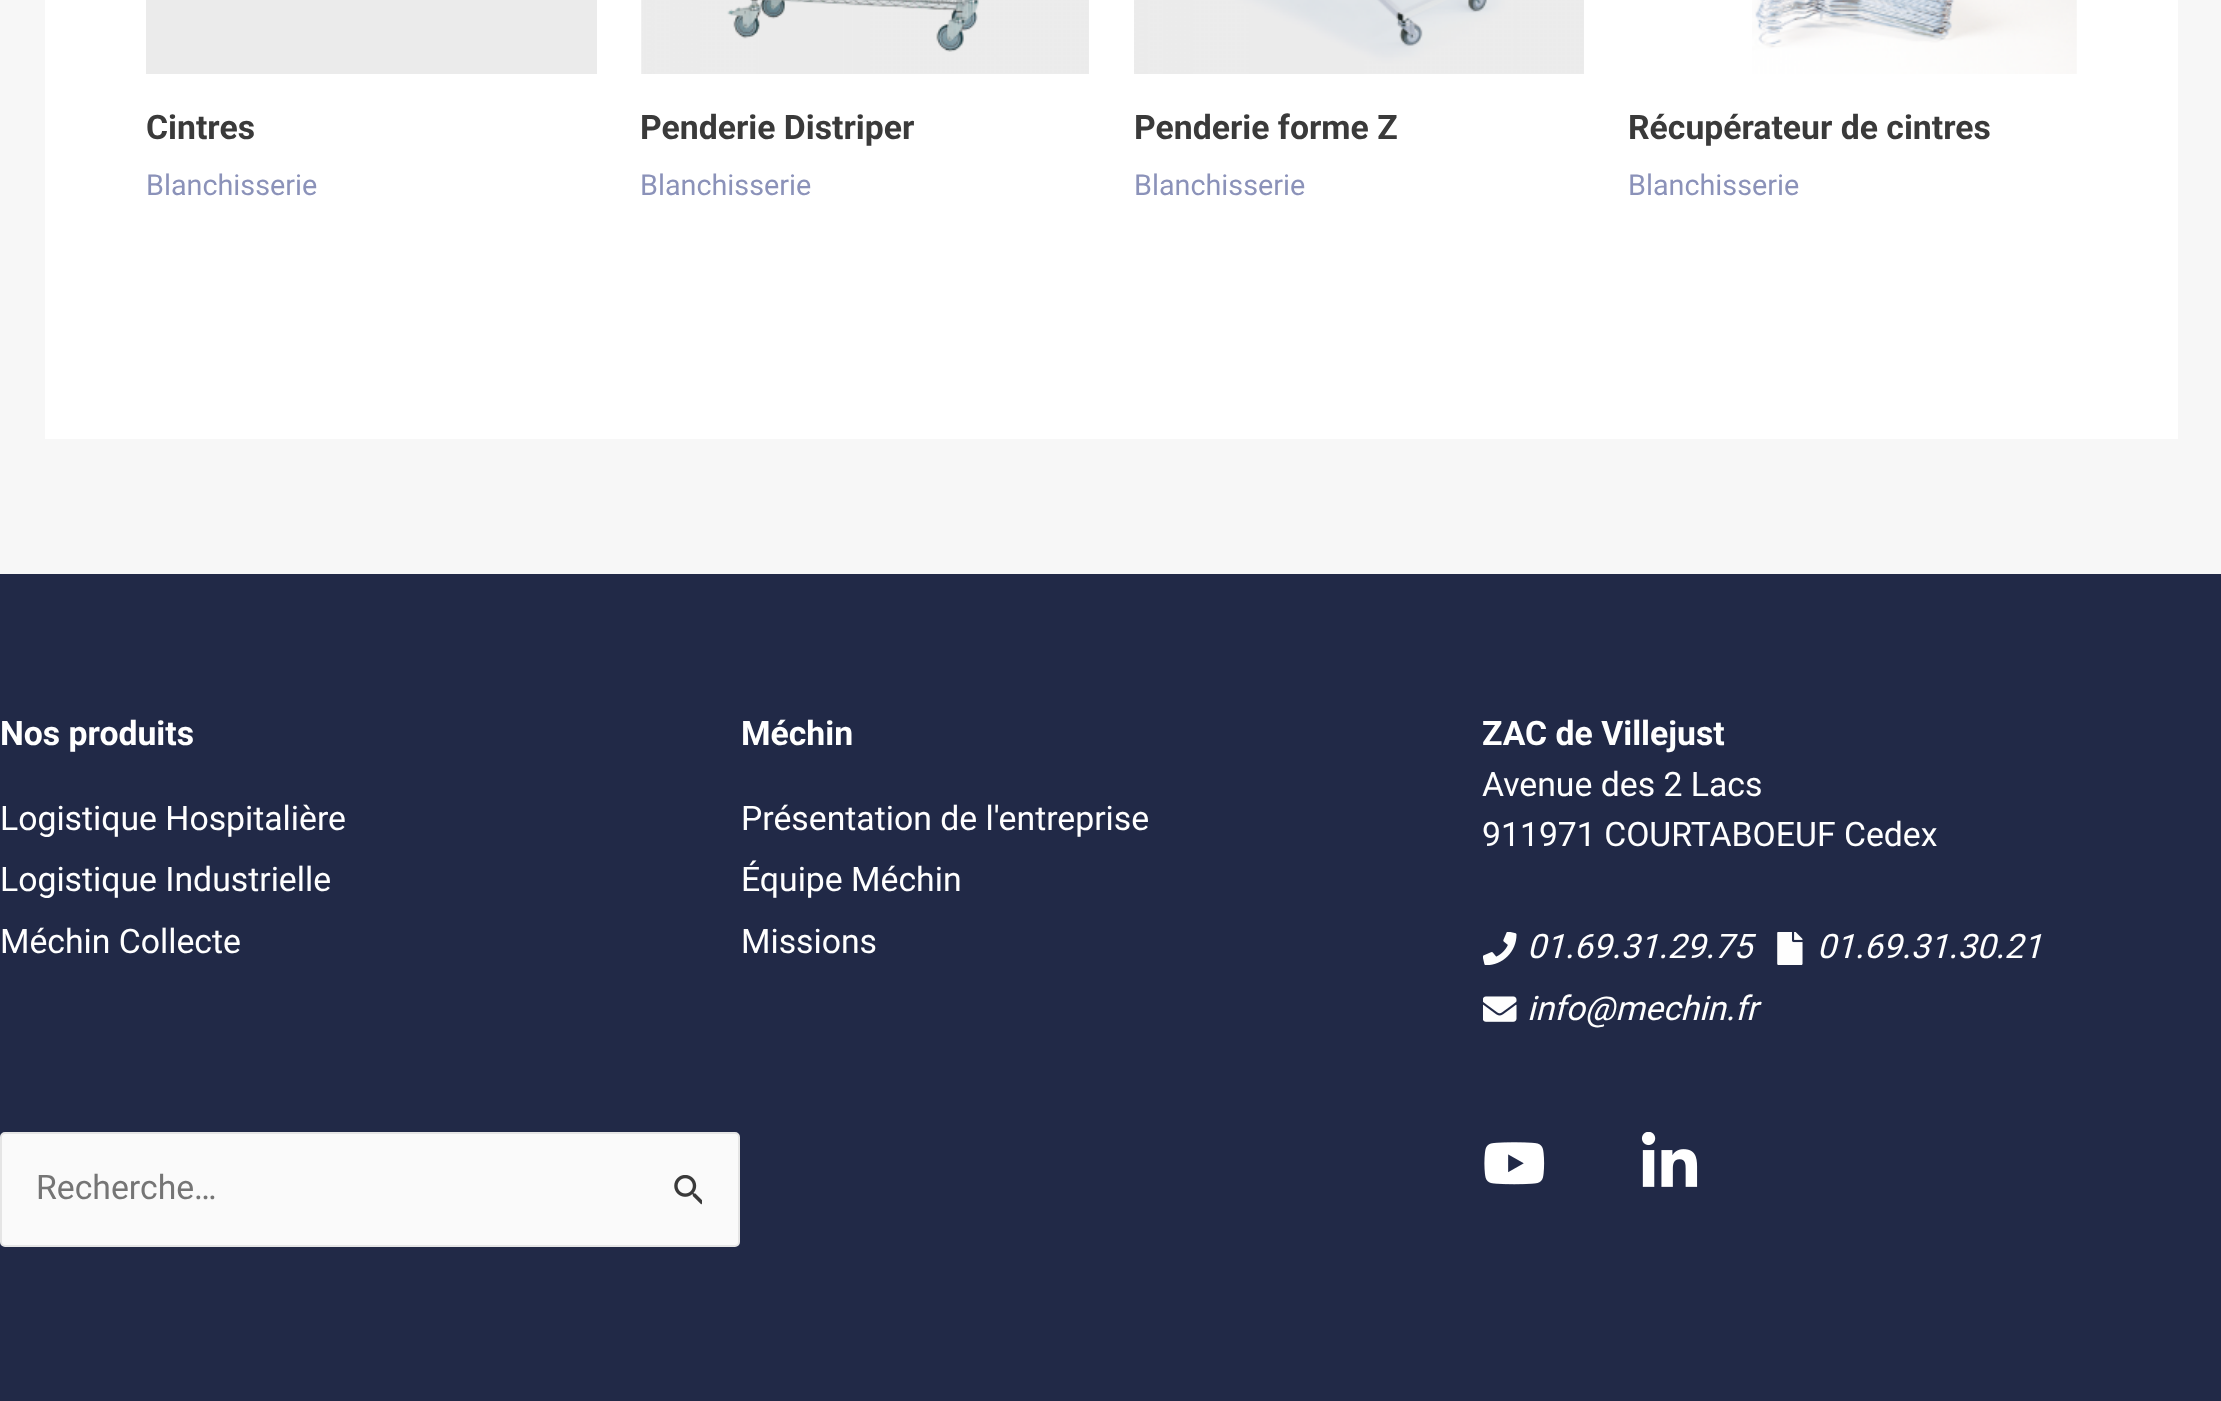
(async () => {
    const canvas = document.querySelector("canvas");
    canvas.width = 2221;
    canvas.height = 1401;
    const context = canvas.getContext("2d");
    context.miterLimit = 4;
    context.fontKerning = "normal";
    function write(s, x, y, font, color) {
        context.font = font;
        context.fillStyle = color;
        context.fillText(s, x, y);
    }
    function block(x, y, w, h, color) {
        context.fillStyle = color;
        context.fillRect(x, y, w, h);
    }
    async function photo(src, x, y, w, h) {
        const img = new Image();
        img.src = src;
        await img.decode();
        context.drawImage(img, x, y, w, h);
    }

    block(0, 0, 2221, 1401, "rgb(247, 247, 247)");
    block(45, 0, 2133, 439, "rgb(255, 255, 255)");
    block(146, 0, 451, 74, "rgb(235, 235, 235)");
    write("Cintres", 146, 139, "bold 33.75px Roboto", "rgb(58, 58, 58)");
    write("Blanchisserie", 146, 195, "28.75px Roboto", "rgb(139, 146, 185)");
    await photo("media/1.png", 641, 0, 448, 74);
    write("Penderie Distriper", 640, 139, "bold 33.75px Roboto", "rgb(58, 58, 58)");
    write("Blanchisserie", 640, 195, "28.75px Roboto", "rgb(139, 146, 185)");
    await photo("media/2.png", 1134, 0, 450, 74);
    write("Penderie forme Z", 1134, 139, "bold 33.75px Roboto", "rgb(58, 58, 58)");
    write("Blanchisserie", 1134, 195, "28.75px Roboto", "rgb(139, 146, 185)");
    await photo("media/3.png", 1752, 0, 325, 74);
    write("Récupérateur de cintres", 1628, 139, "bold 33.75px Roboto", "rgb(58, 58, 58)");
    write("Blanchisserie", 1628, 195, "28.75px Roboto", "rgb(139, 146, 185)");
    block(0, 574, 2221, 827, "rgb(33, 41, 71)");
    write("Nos produits", 0, 745, "bold 33.75px Roboto", "rgb(255, 255, 255)");
    write("Logistique Hospitalière", 0, 830, "33.75px Roboto", "rgb(255, 255, 255)");
    write("Logistique Industrielle", 0, 891, "33.75px Roboto", "rgb(255, 255, 255)");
    write("Méchin Collecte", 0, 953, "33.75px Roboto", "rgb(255, 255, 255)");
    write("Méchin", 741, 745, "bold 33.75px Roboto", "rgb(255, 255, 255)");
    write("Présentation de l'entreprise", 741, 830, "33.75px Roboto", "rgb(255, 255, 255)");
    write("Équipe Méchin", 741, 891, "33.75px Roboto", "rgb(255, 255, 255)");
    write("Missions", 741, 953, "33.75px Roboto", "rgb(255, 255, 255)");
    write("ZAC de Villejust", 1482, 745, "bold 33.75px Roboto", "rgb(255, 255, 255)");
    write("Avenue des 2 Lacs", 1482, 796, "33.75px Roboto", "rgb(255, 255, 255)");
    write("911971 COURTABOEUF Cedex", 1482, 846, "33.75px Roboto", "rgb(255, 255, 255)");
    await photo("media/4.png", 1483, 932, 34, 33);
    write("01.69.31.29.75", 1527, 958, "italic 33.75px Roboto", "rgb(255, 255, 255)");
    await photo("media/5.png", 1777, 932, 26, 33);
    write("01.69.31.30.21", 1817, 958, "italic 33.75px Roboto", "rgb(255, 255, 255)");
    await photo("media/6.png", 1483, 996, 34, 26);
    write("info@mechin.fr", 1527, 1020, "italic 33.75px Roboto", "rgb(255, 255, 255)");
    context.fillStyle = "rgb(250, 250, 250)";
    context.beginPath();
    context.roundRect(1, 1133, 738, 113, 4);
    context.fill();
    context.strokeStyle = "rgb(229, 229, 229)";
    context.lineWidth = 2;
    context.stroke();
    write("Recherche…", 36, 1199, "33.75px Roboto", "rgb(117, 117, 117)");
    await photo("media/7.png", 674, 1175, 28, 30);
    await photo("media/8.png", 1484, 1142, 61, 43);
    await photo("media/9.png", 1641, 1132, 57, 55);
})();
